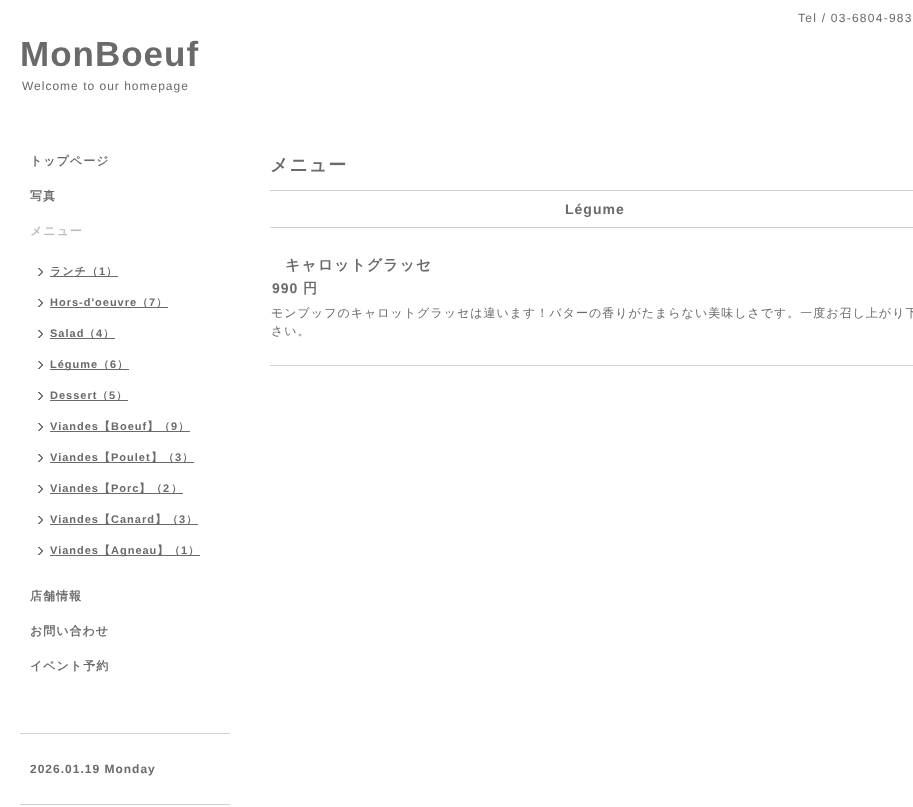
(async () => {
    const canvas = document.querySelector("canvas");
    canvas.width = 913;
    canvas.height = 807;
    const context = canvas.getContext("2d");
    context.miterLimit = 4;
    context.fontKerning = "normal";
    function write(s, x, y, font, color) {
        context.font = font;
        context.fillStyle = color;
        context.fillText(s, x, y);
    }
    function block(x, y, w, h, color) {
        context.fillStyle = color;
        context.fillRect(x, y, w, h);
    }
    async function photo(src, x, y, w, h) {
        const img = new Image();
        img.src = src;
        await img.decode();
        context.drawImage(img, x, y, w, h);
    }

    block(0, 0, 913, 807, "rgb(255, 255, 255)");
    context.letterSpacing = "1.25px";
    write("Tel / 03-6804-983", 798, 22, "12px Liberation Sans", "rgb(106, 106, 106)");
    context.letterSpacing = "1px";
    write("MonBoeuf", 20, 66, "bold 35px Liberation Sans", "rgb(106, 106, 106)");
    write("Welcome to our homepage", 22, 90, "12px Liberation Sans", "rgb(106, 106, 106)");
    write("トップページ", 30, 165, "bold 12px WenQuanYi Zen Hei", "rgb(106, 106, 106)");
    write("写真", 30, 200, "bold 12px WenQuanYi Zen Hei", "rgb(106, 106, 106)");
    write("メニュー", 30, 235, "bold 12px WenQuanYi Zen Hei", "rgb(188, 188, 188)");
    await photo("media/1.png", 38, 268, 5, 8);
    block(50, 276, 68, 1, "rgb(106, 106, 106)");
    write("ランチ（", 50, 275, "bold 11px WenQuanYi Zen Hei", "rgb(106, 106, 106)");
    write("1", 99, 275, "bold 11px Liberation Sans", "rgb(106, 106, 106)");
    write("）", 106, 275, "bold 11px WenQuanYi Zen Hei", "rgb(106, 106, 106)");
    await photo("media/1.png", 38, 299, 5, 8);
    write("Hors-d'oeuvre", 50, 306, "bold 11px Liberation Sans", "rgb(106, 106, 106)");
    block(50, 307, 118, 1, "rgb(106, 106, 106)");
    write("（", 137, 306, "bold 11px WenQuanYi Zen Hei", "rgb(106, 106, 106)");
    write("7", 149, 306, "bold 11px Liberation Sans", "rgb(106, 106, 106)");
    write("）", 156, 306, "bold 11px WenQuanYi Zen Hei", "rgb(106, 106, 106)");
    await photo("media/1.png", 38, 330, 5, 8);
    write("Salad", 50, 337, "bold 11px Liberation Sans", "rgb(106, 106, 106)");
    block(50, 338, 65, 1, "rgb(106, 106, 106)");
    write("（", 84, 337, "bold 11px WenQuanYi Zen Hei", "rgb(106, 106, 106)");
    write("4", 96, 337, "bold 11px Liberation Sans", "rgb(106, 106, 106)");
    write("）", 103, 337, "bold 11px WenQuanYi Zen Hei", "rgb(106, 106, 106)");
    await photo("media/1.png", 38, 361, 5, 8);
    block(50, 369, 79, 1, "rgb(106, 106, 106)");
    write("Légume", 50, 368, "bold 11px Liberation Sans", "rgb(106, 106, 106)");
    write("（", 98, 368, "bold 11px WenQuanYi Zen Hei", "rgb(106, 106, 106)");
    write("6", 110, 368, "bold 11px Liberation Sans", "rgb(106, 106, 106)");
    write("）", 117, 368, "bold 11px WenQuanYi Zen Hei", "rgb(106, 106, 106)");
    await photo("media/1.png", 38, 392, 5, 8);
    write("Dessert", 50, 399, "bold 11px Liberation Sans", "rgb(106, 106, 106)");
    block(50, 400, 78, 1, "rgb(106, 106, 106)");
    write("（", 97, 399, "bold 11px WenQuanYi Zen Hei", "rgb(106, 106, 106)");
    write("5", 109, 399, "bold 11px Liberation Sans", "rgb(106, 106, 106)");
    write("）", 116, 399, "bold 11px WenQuanYi Zen Hei", "rgb(106, 106, 106)");
    await photo("media/1.png", 38, 423, 5, 8);
    write("Viandes", 50, 430, "bold 11px Liberation Sans", "rgb(106, 106, 106)");
    block(50, 431, 140, 1, "rgb(106, 106, 106)");
    write("【", 99, 430, "bold 11px WenQuanYi Zen Hei", "rgb(106, 106, 106)");
    write("Boeuf", 111, 430, "bold 11px Liberation Sans", "rgb(106, 106, 106)");
    write("】（", 147, 430, "bold 11px WenQuanYi Zen Hei", "rgb(106, 106, 106)");
    write("9", 171, 430, "bold 11px Liberation Sans", "rgb(106, 106, 106)");
    write("）", 178, 430, "bold 11px WenQuanYi Zen Hei", "rgb(106, 106, 106)");
    await photo("media/1.png", 38, 454, 5, 8);
    write("Viandes", 50, 461, "bold 11px Liberation Sans", "rgb(106, 106, 106)");
    block(50, 462, 144, 1, "rgb(106, 106, 106)");
    write("【", 99, 461, "bold 11px WenQuanYi Zen Hei", "rgb(106, 106, 106)");
    write("Poulet", 111, 461, "bold 11px Liberation Sans", "rgb(106, 106, 106)");
    write("】（", 151, 461, "bold 11px WenQuanYi Zen Hei", "rgb(106, 106, 106)");
    write("3", 175, 461, "bold 11px Liberation Sans", "rgb(106, 106, 106)");
    write("）", 182, 461, "bold 11px WenQuanYi Zen Hei", "rgb(106, 106, 106)");
    await photo("media/1.png", 38, 485, 5, 8);
    write("Viandes", 50, 492, "bold 11px Liberation Sans", "rgb(106, 106, 106)");
    block(50, 493, 133, 1, "rgb(106, 106, 106)");
    write("【", 99, 492, "bold 11px WenQuanYi Zen Hei", "rgb(106, 106, 106)");
    write("Porc", 111, 492, "bold 11px Liberation Sans", "rgb(106, 106, 106)");
    write("】（", 139, 492, "bold 11px WenQuanYi Zen Hei", "rgb(106, 106, 106)");
    write("2", 163, 492, "bold 11px Liberation Sans", "rgb(106, 106, 106)");
    write("）", 171, 492, "bold 11px WenQuanYi Zen Hei", "rgb(106, 106, 106)");
    await photo("media/1.png", 38, 516, 5, 8);
    write("Viandes", 50, 523, "bold 11px Liberation Sans", "rgb(106, 106, 106)");
    block(50, 524, 148, 1, "rgb(106, 106, 106)");
    write("【", 99, 523, "bold 11px WenQuanYi Zen Hei", "rgb(106, 106, 106)");
    write("Canard", 111, 523, "bold 11px Liberation Sans", "rgb(106, 106, 106)");
    write("】（", 155, 523, "bold 11px WenQuanYi Zen Hei", "rgb(106, 106, 106)");
    write("3", 179, 523, "bold 11px Liberation Sans", "rgb(106, 106, 106)");
    write("）", 186, 523, "bold 11px WenQuanYi Zen Hei", "rgb(106, 106, 106)");
    await photo("media/1.png", 38, 547, 5, 8);
    write("Viandes", 50, 554, "bold 11px Liberation Sans", "rgb(106, 106, 106)");
    block(50, 555, 150, 1, "rgb(106, 106, 106)");
    write("【", 99, 554, "bold 11px WenQuanYi Zen Hei", "rgb(106, 106, 106)");
    write("Agneau", 111, 554, "bold 11px Liberation Sans", "rgb(106, 106, 106)");
    write("】（", 157, 554, "bold 11px WenQuanYi Zen Hei", "rgb(106, 106, 106)");
    write("1", 181, 554, "bold 11px Liberation Sans", "rgb(106, 106, 106)");
    write("）", 188, 554, "bold 11px WenQuanYi Zen Hei", "rgb(106, 106, 106)");
    write("店舗情報", 30, 600, "bold 12px WenQuanYi Zen Hei", "rgb(106, 106, 106)");
    write("お問い合わせ", 30, 635, "bold 12px WenQuanYi Zen Hei", "rgb(106, 106, 106)");
    write("イベント予約", 30, 670, "bold 12px WenQuanYi Zen Hei", "rgb(106, 106, 106)");
    write("メニュー", 270, 171, "bold 18px WenQuanYi Zen Hei", "rgb(106, 106, 106)");
    block(270, 365, 643, 1, "rgb(208, 208, 208)");
    block(270, 190, 643, 1, "rgb(208, 208, 208)");
    block(270, 227, 643, 1, "rgb(208, 208, 208)");
    write("Légume", 565, 214, "bold 14px Liberation Sans", "rgb(106, 106, 106)");
    write("キャロットグラッセ", 285, 270, "bold 15px WenQuanYi Zen Hei", "rgb(106, 106, 106)");
    write("990", 272, 293, "bold 14px Liberation Sans", "rgb(106, 106, 106)");
    write("円", 303, 293, "bold 14px WenQuanYi Zen Hei", "rgb(106, 106, 106)");
    write("モンブッフのキャロットグラッセは違います！バターの香りがたまらない美味しさです。一度お召し上がり下", 271, 317, "500 12px WenQuanYi Zen Hei", "rgb(106, 106, 106)");
    write("さい。", 271, 335, "500 12px WenQuanYi Zen Hei", "rgb(106, 106, 106)");
    block(20, 733, 210, 1, "rgb(208, 208, 208)");
    block(20, 804, 210, 1, "rgb(208, 208, 208)");
    write("2026.01.19 Monday", 30, 773, "bold 12px Liberation Sans", "rgb(106, 106, 106)");
})();
